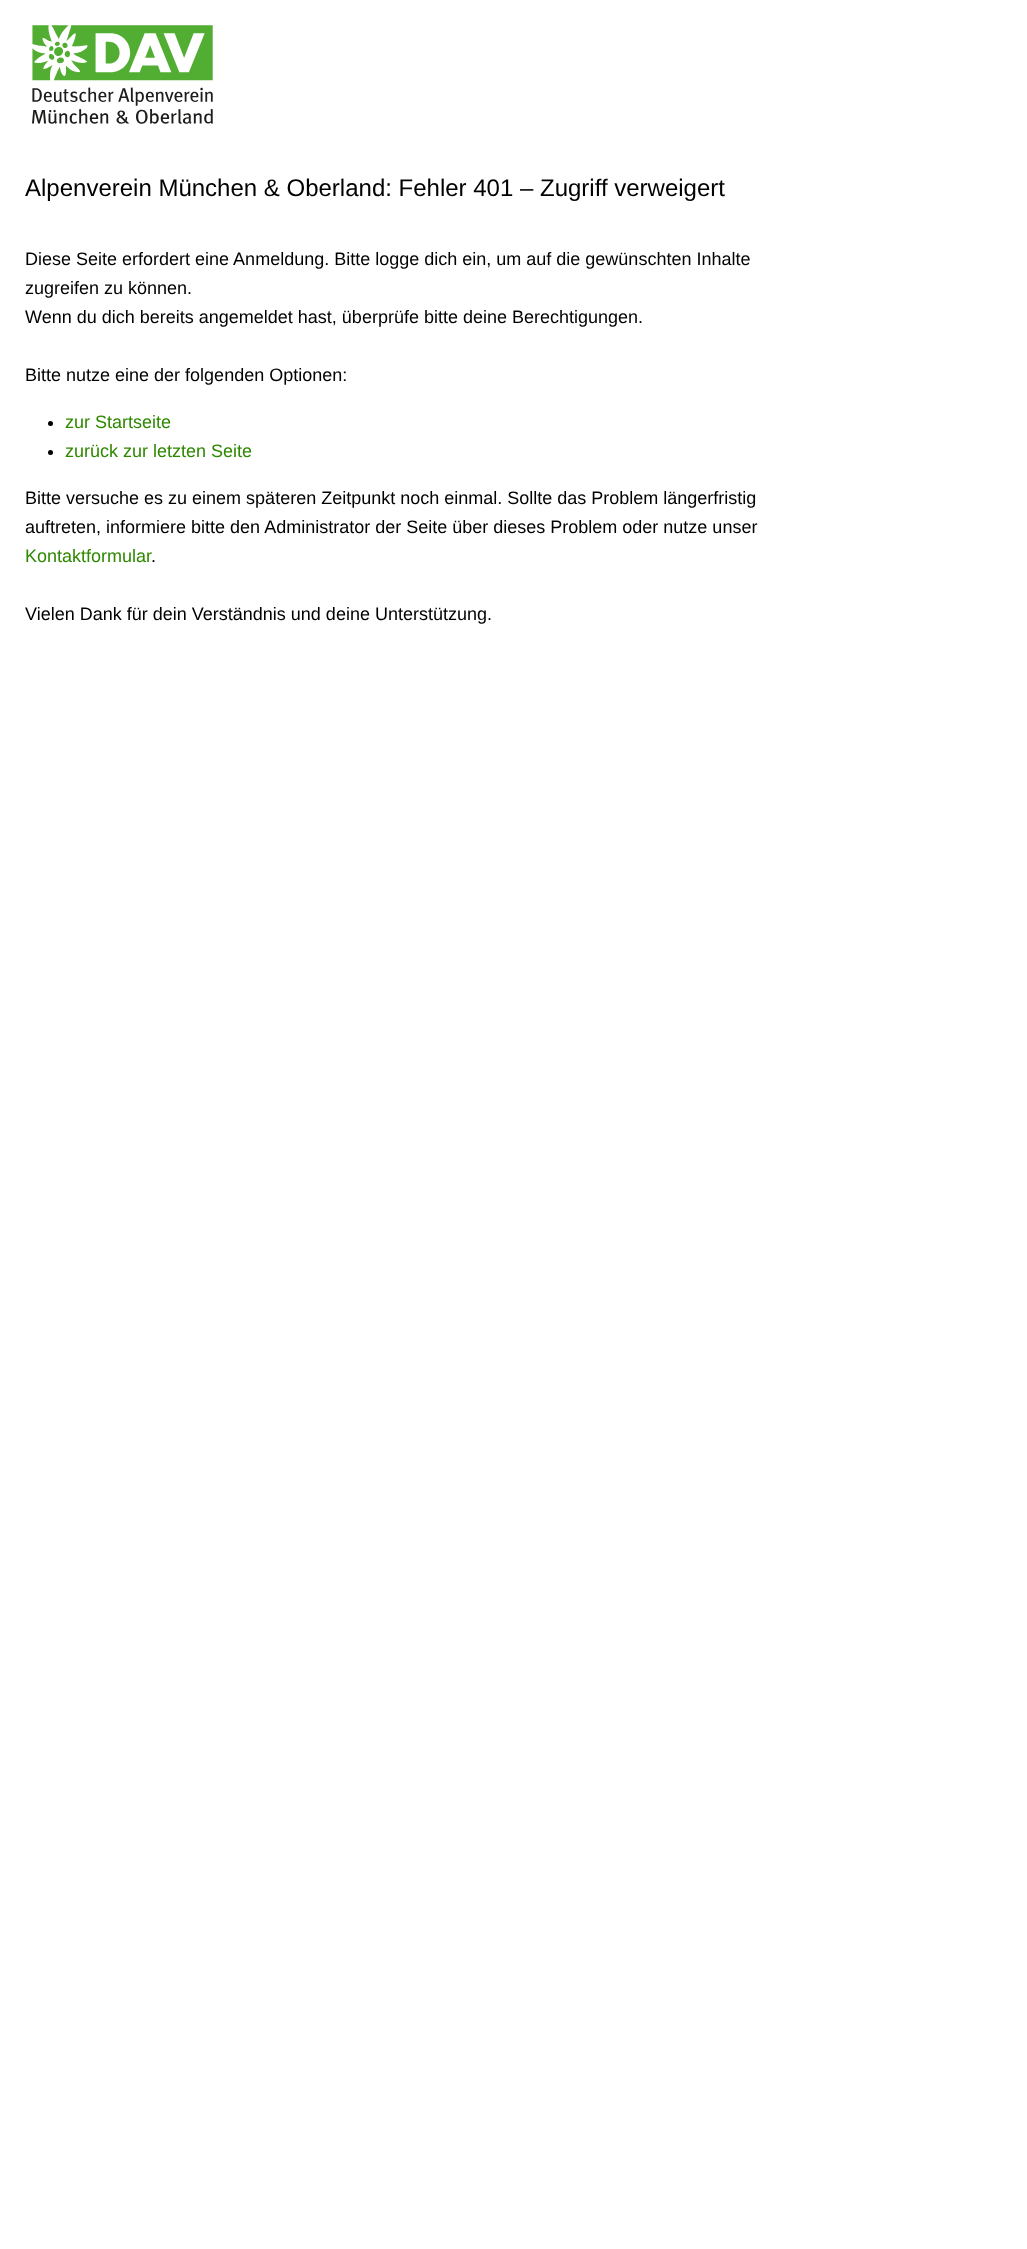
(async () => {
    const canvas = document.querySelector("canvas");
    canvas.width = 1027;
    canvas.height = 2249;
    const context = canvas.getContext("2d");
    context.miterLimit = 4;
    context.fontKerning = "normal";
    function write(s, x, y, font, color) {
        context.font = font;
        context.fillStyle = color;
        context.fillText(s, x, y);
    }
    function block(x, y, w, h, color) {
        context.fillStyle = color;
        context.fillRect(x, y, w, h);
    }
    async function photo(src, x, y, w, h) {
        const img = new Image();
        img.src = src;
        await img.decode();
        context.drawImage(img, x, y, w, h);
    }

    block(0, 0, 1027, 2249, "rgb(255, 255, 255)");
    await photo("media/1.png", 32, 25, 181, 99);
    write("Alpenverein München & Oberland: Fehler 401 – Zugriff verweigert", 25, 196, "24px Liberation Sans", "rgb(0, 0, 0)");
    write("Diese Seite erfordert eine Anmeldung. Bitte logge dich ein, um auf die gewünschten Inhalte", 25, 265, "18px Liberation Sans", "rgb(0, 0, 0)");
    write("zugreifen zu können.", 25, 294, "18px Liberation Sans", "rgb(0, 0, 0)");
    write("Wenn du dich bereits angemeldet hast, überprüfe bitte deine Berechtigungen.", 25, 323, "18px Liberation Sans", "rgb(0, 0, 0)");
    write("Bitte nutze eine der folgenden Optionen:", 25, 381, "18px Liberation Sans", "rgb(0, 0, 0)");
    context.beginPath();
    context.arc(50.5, 423.5, 2.5, 0, Math.PI * 2);
    context.fill();
    write("zur Startseite", 65, 428, "18px Liberation Sans", "rgb(46, 136, 0)");
    context.fillStyle = "rgb(0, 0, 0)";
    context.beginPath();
    context.arc(50.5, 452.5, 2.5, 0, Math.PI * 2);
    context.fill();
    write("zurück zur letzten Seite", 65, 457, "18px Liberation Sans", "rgb(46, 136, 0)");
    write("Bitte versuche es zu einem späteren Zeitpunkt noch einmal. Sollte das Problem längerfristig", 25, 504, "18px Liberation Sans", "rgb(0, 0, 0)");
    write("auftreten, informiere bitte den Administrator der Seite über dieses Problem oder nutze unser", 25, 533, "18px Liberation Sans", "rgb(0, 0, 0)");
    write("Kontaktformular", 25, 562, "18px Liberation Sans", "rgb(46, 136, 0)");
    write(".", 151, 562, "18px Liberation Sans", "rgb(0, 0, 0)");
    write("Vielen Dank für dein Verständnis und deine Unterstützung.", 25, 620, "18px Liberation Sans", "rgb(0, 0, 0)");
})();
